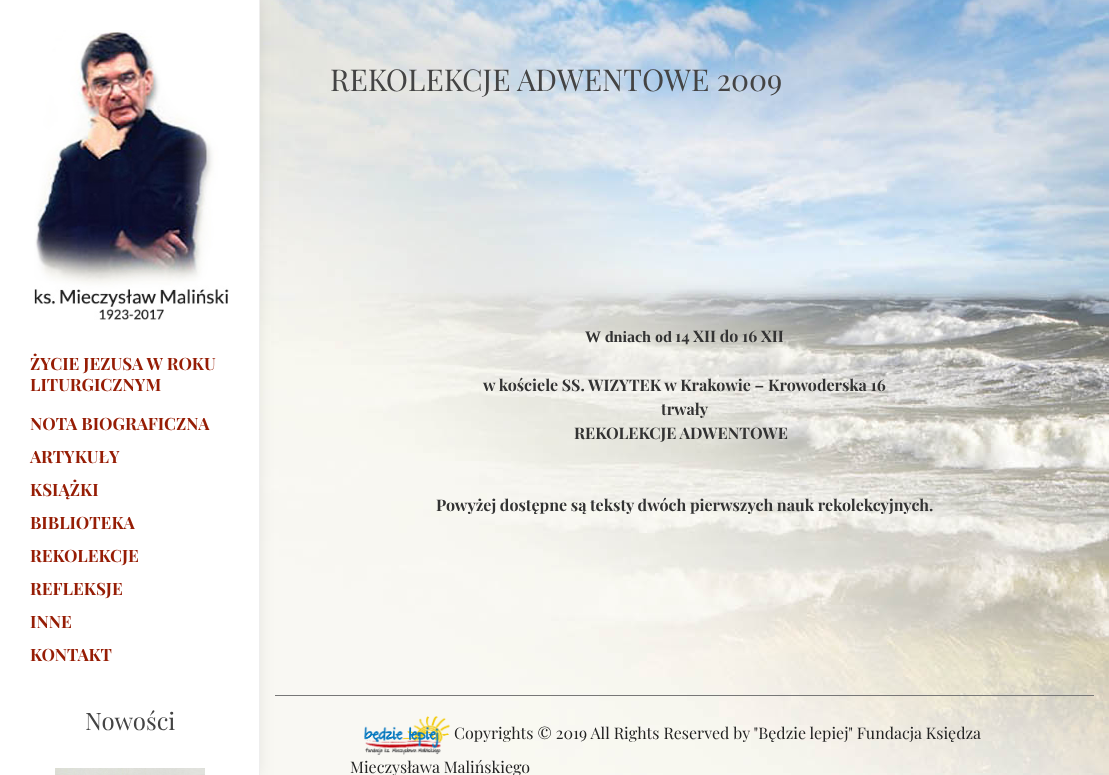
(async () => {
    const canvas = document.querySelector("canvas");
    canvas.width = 1109;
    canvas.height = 775;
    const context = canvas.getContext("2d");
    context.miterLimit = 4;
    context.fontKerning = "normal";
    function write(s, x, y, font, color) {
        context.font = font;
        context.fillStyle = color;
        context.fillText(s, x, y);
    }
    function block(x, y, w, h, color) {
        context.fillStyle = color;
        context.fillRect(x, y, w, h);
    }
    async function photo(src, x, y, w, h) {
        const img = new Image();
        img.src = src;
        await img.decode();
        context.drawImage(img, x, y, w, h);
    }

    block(0, 0, 1109, 775, "rgb(255, 255, 255)");
    await photo("media/1.png", 260, 0, 849, 775);
    block(275, 695, 819, 1, "rgb(119, 119, 119)");
    context.fillStyle = "rgba(0, 0, 0, 0.07)";
    context.filter = "blur(7.5px)";
    context.beginPath();
    context.rect(0, 0, 260, 775);
    context.fill();
    context.filter = "none";
    block(0, 0, 259, 775, "rgb(255, 255, 255)");
    block(259, 0, 1, 775, "rgb(238, 238, 238)");
    await photo("media/2.png", 34, 30, 195, 290);
    write("ŻYCIE JEZUSA W ROKU", 30, 370, "bold 17px Playfair Display", "rgb(150, 29, 5)");
    write("LITURGICZNYM", 30, 391, "bold 17px Playfair Display", "rgb(150, 29, 5)");
    write("NOTA BIOGRAFICZNA", 30, 430, "bold 17px Playfair Display", "rgb(150, 29, 5)");
    write("ARTYKUŁY", 30, 463, "bold 17px Playfair Display", "rgb(150, 29, 5)");
    write("KSIĄŻKI", 30, 496, "bold 17px Playfair Display", "rgb(150, 29, 5)");
    write("BIBLIOTEKA", 30, 529, "bold 17px Playfair Display", "rgb(150, 29, 5)");
    write("REKOLEKCJE", 30, 562, "bold 17px Playfair Display", "rgb(150, 29, 5)");
    write("REFLEKSJE", 30, 595, "bold 17px Playfair Display", "rgb(150, 29, 5)");
    write("INNE", 30, 628, "bold 17px Playfair Display", "rgb(150, 29, 5)");
    write("KONTAKT", 30, 661, "bold 17px Playfair Display", "rgb(150, 29, 5)");
    write("Nowości", 85, 730, "24px Playfair Display", "rgb(68, 68, 68)");
    await photo("media/3.png", 55, 768, 150, 7);
    write("REKOLEKCJE ADWENTOWE 2009", 330, 91, "30px Playfair Display", "rgb(68, 68, 68)");
    write("W dniach od", 585, 342, "bold 16px Liberation Serif", "rgb(51, 51, 51)");
    write("14 XII do 16 XII", 675, 342, "bold 16px Playfair Display", "rgb(51, 51, 51)");
    write("w kościele SS. WIZYTEK w Krakowie – Krowoderska 16", 483, 391, "bold 16px Playfair Display", "rgb(51, 51, 51)");
    write("trwały", 661, 415, "bold 16px Playfair Display", "rgb(51, 51, 51)");
    write("REKOLEKCJE ADWENTOWE", 574, 439, "bold 16px Playfair Display", "rgb(51, 51, 51)");
    write("Powyżej dostępne są teksty dwóch pierwszych nauk rekolekcyjnych.", 436, 511, "bold 16px Playfair Display", "rgb(51, 51, 51)");
    await photo("media/4.png", 364, 716, 86, 39);
    write("Copyrights © 2019 All Rights Reserved by \"Będzie lepiej\" Fundacja Księdza", 454, 739, "16px Playfair Display", "rgb(34, 34, 34)");
    write("Mieczysława Malińskiego", 350, 773, "16px Playfair Display", "rgb(34, 34, 34)");
})();
